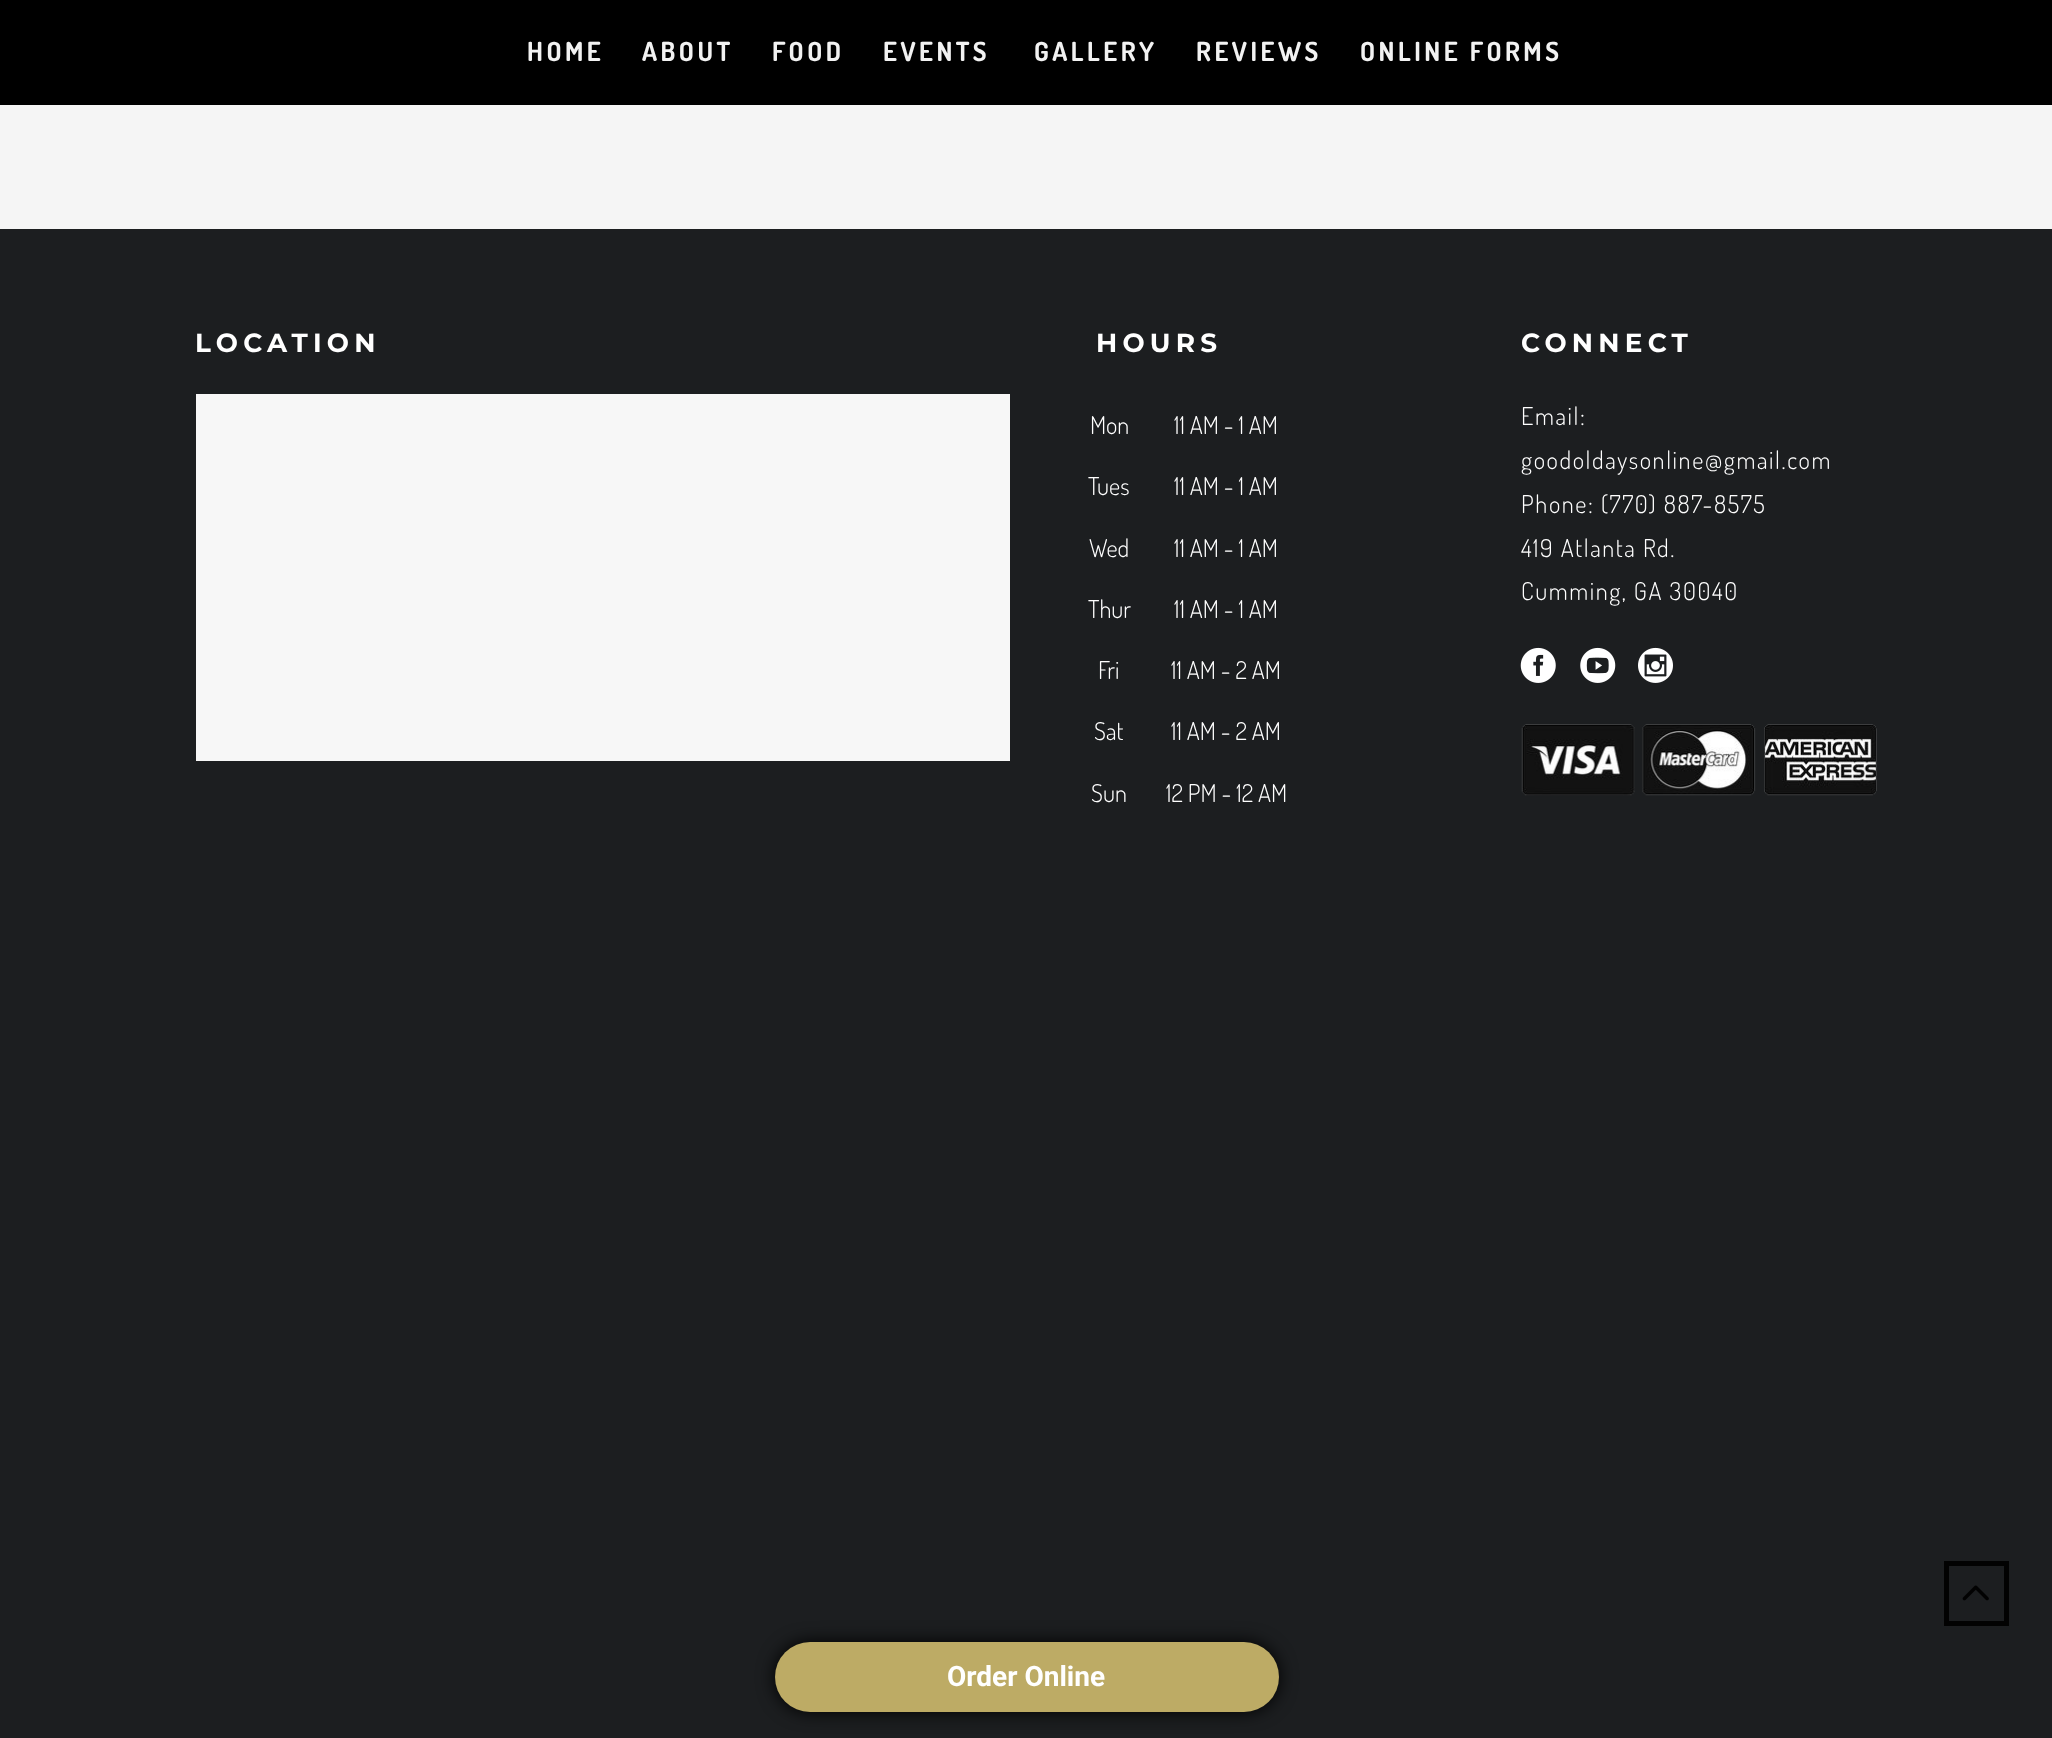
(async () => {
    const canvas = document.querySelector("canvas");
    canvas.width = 2052;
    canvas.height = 1738;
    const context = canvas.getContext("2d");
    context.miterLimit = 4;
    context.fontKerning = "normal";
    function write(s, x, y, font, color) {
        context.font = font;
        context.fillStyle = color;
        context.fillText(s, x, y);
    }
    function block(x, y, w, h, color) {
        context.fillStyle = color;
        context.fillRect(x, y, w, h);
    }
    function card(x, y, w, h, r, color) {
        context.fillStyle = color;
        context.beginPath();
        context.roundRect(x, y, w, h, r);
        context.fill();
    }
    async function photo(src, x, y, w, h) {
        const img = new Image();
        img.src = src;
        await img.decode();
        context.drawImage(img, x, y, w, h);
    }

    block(0, 0, 2052, 1738, "rgb(245, 245, 245)");
    block(0, 0, 2052, 105, "rgb(0, 0, 0)");
    context.letterSpacing = "3.5px";
    write("HOME", 527, 61, "bold 26.25px Dosis", "rgb(242, 242, 242)");
    write("ABOUT", 642, 61, "bold 26.25px Dosis", "rgb(242, 242, 242)");
    write("FOOD", 772, 61, "bold 26.25px Dosis", "rgb(242, 242, 242)");
    write("EVENTS", 883, 61, "bold 26.25px Dosis", "rgb(242, 242, 242)");
    write("GALLERY", 1034, 61, "bold 26.25px Dosis", "rgb(242, 242, 242)");
    write("REVIEWS", 1196, 61, "bold 26.25px Dosis", "rgb(242, 242, 242)");
    write("ONLINE FORMS", 1360, 61, "bold 26.25px Dosis", "rgb(242, 242, 242)");
    block(0, 229, 2052, 1509, "rgb(28, 30, 32)");
    context.letterSpacing = "5.25px";
    write("LOCATION", 195, 352, "bold 26.25px Montserrat", "rgb(255, 255, 255)");
    block(196, 394, 814, 367, "rgb(247, 247, 247)");
    write("HOURS", 1096, 352, "bold 26.25px Montserrat", "rgb(255, 255, 255)");
    context.letterSpacing = "0px";
    write("Mon", 1090, 434, "300 24.5px Dosis", "rgb(255, 255, 255)");
    write("11 AM - 1 AM", 1174, 434, "300 24.5px Dosis", "rgb(255, 255, 255)");
    write("Tues", 1088, 495, "300 24.5px Dosis", "rgb(255, 255, 255)");
    write("11 AM - 1 AM", 1174, 495, "300 24.5px Dosis", "rgb(255, 255, 255)");
    write("Wed", 1089, 557, "300 24.5px Dosis", "rgb(255, 255, 255)");
    write("11 AM - 1 AM", 1174, 557, "300 24.5px Dosis", "rgb(255, 255, 255)");
    write("Thur", 1088, 618, "300 24.5px Dosis", "rgb(255, 255, 255)");
    write("11 AM - 1 AM", 1174, 618, "300 24.5px Dosis", "rgb(255, 255, 255)");
    write("Fri", 1098, 679, "300 24.5px Dosis", "rgb(255, 255, 255)");
    write("11 AM - 2 AM", 1171, 679, "300 24.5px Dosis", "rgb(255, 255, 255)");
    write("Sat", 1094, 740, "300 24.5px Dosis", "rgb(255, 255, 255)");
    write("11 AM - 2 AM", 1171, 740, "300 24.5px Dosis", "rgb(255, 255, 255)");
    write("Sun", 1091, 802, "300 24.5px Dosis", "rgb(255, 255, 255)");
    write("12 PM - 12 AM", 1166, 802, "300 24.5px Dosis", "rgb(255, 255, 255)");
    context.letterSpacing = "5.25px";
    write("CONNECT", 1521, 352, "bold 26.25px Montserrat", "rgb(255, 255, 255)");
    context.letterSpacing = "1.6px";
    write("Email:", 1521, 425, "300 24.5px Dosis", "rgb(255, 255, 255)");
    write("goodoldaysonline@gmail.com", 1521, 469, "300 24.5px Dosis", "rgb(255, 255, 255)");
    write("Phone: (770) 887-8575", 1521, 513, "300 24.5px Dosis", "rgb(255, 255, 255)");
    write("419 Atlanta Rd.", 1521, 557, "300 24.5px Dosis", "rgb(255, 255, 255)");
    write("Cumming, GA 30040", 1521, 600, "300 24.5px Dosis", "rgb(255, 255, 255)");
    await photo("media/1.png", 1520, 647, 36, 36);
    await photo("media/2.png", 1580, 647, 36, 36);
    await photo("media/3.png", 1638, 647, 35, 36);
    await photo("media/4.png", 1521, 724, 356, 72);
    context.strokeStyle = "rgb(2, 2, 2)";
    context.lineWidth = 5;
    context.strokeRect(1946.5, 1563.5, 60, 60);
    await photo("media/5.png", 1962, 1585, 27, 16);
    context.fillStyle = "rgb(0, 0, 0)";
    context.filter = "blur(9px)";
    context.beginPath();
    context.roundRect(775, 1642, 504, 70, 35);
    context.fill();
    context.filter = "none";
    card(775, 1642, 504, 70, 35, "rgb(189, 171, 101)");
    context.letterSpacing = "0px";
    write("Order Online", 947, 1686, "bold 28px Roboto", "rgb(255, 255, 255)");
})();
